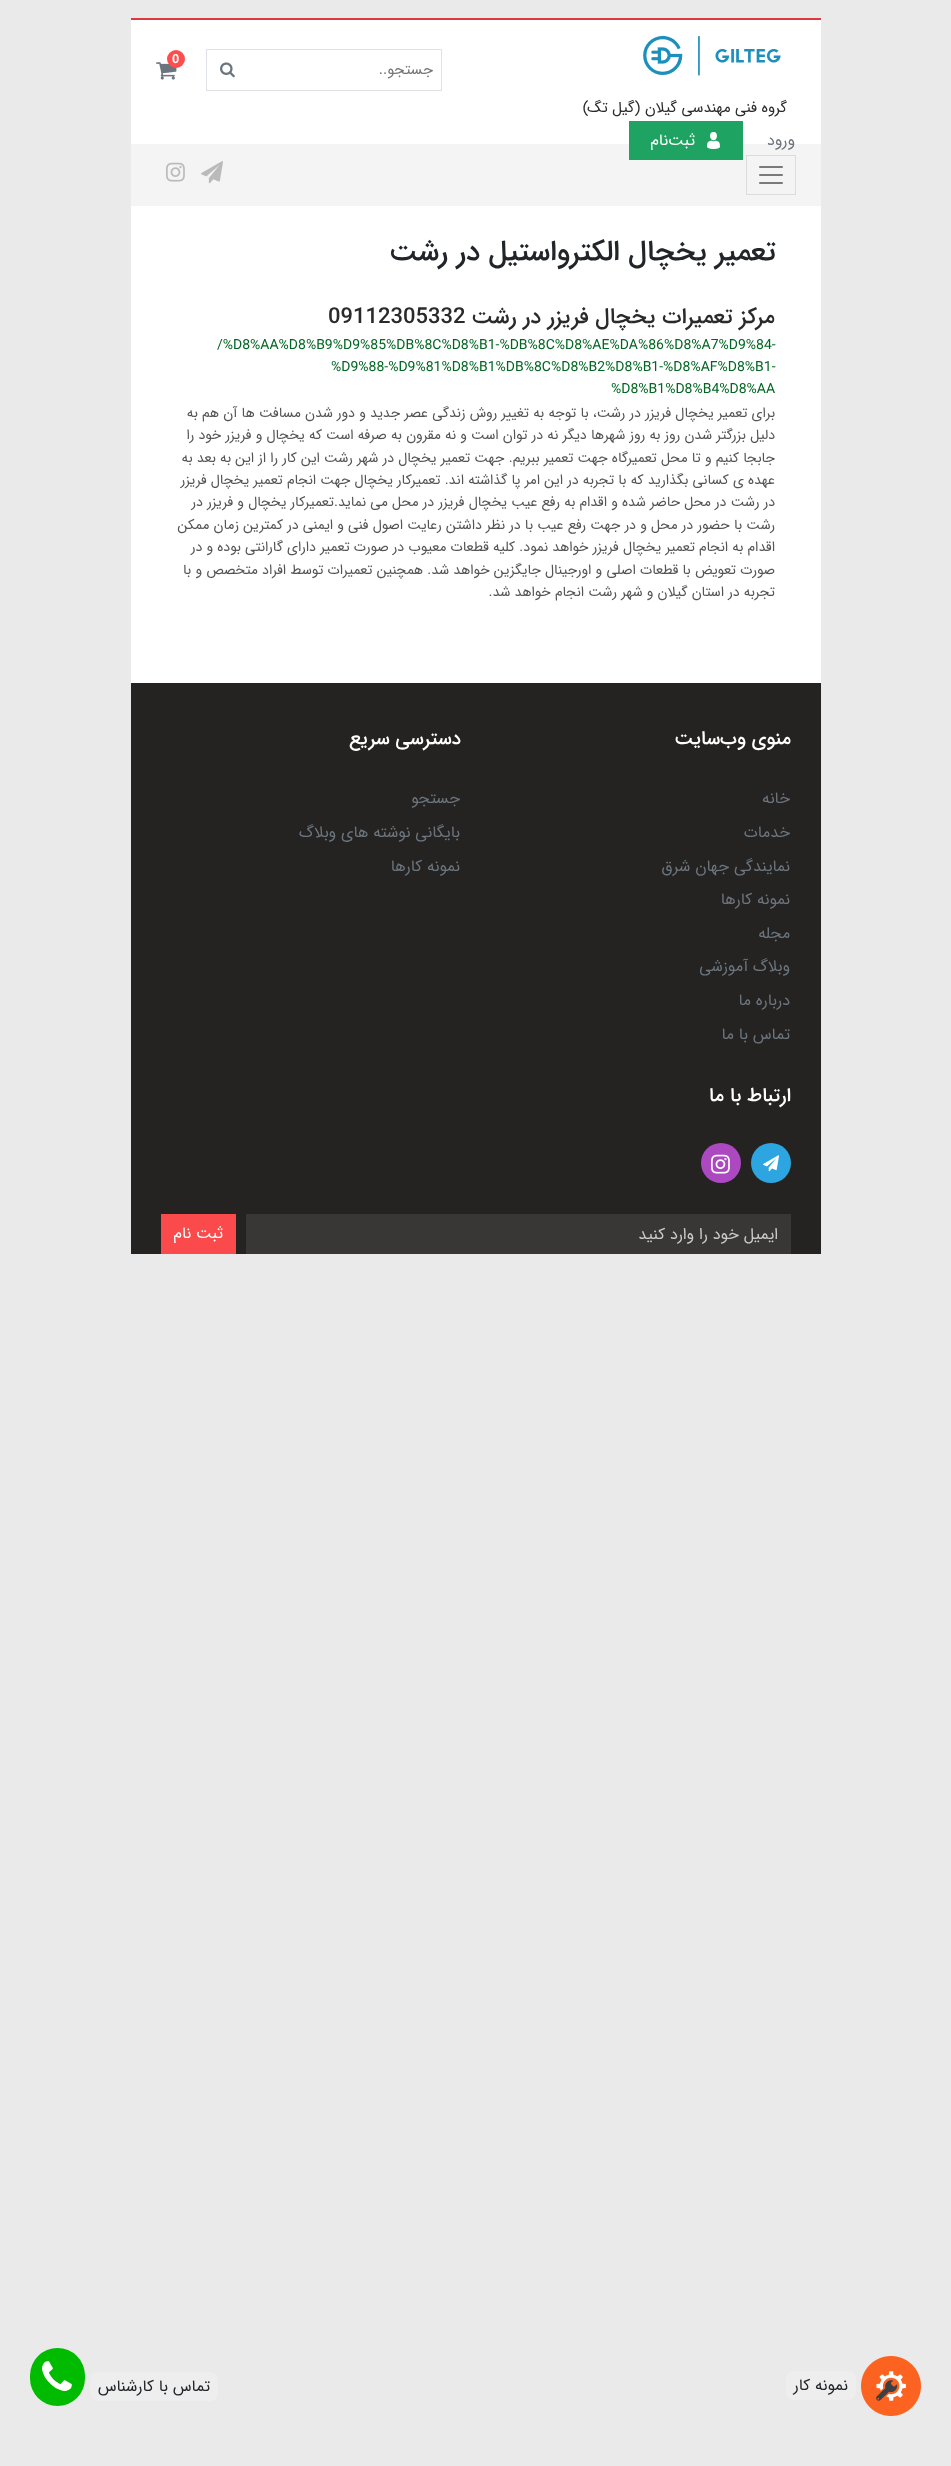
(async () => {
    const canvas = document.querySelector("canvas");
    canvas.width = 951;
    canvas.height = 2466;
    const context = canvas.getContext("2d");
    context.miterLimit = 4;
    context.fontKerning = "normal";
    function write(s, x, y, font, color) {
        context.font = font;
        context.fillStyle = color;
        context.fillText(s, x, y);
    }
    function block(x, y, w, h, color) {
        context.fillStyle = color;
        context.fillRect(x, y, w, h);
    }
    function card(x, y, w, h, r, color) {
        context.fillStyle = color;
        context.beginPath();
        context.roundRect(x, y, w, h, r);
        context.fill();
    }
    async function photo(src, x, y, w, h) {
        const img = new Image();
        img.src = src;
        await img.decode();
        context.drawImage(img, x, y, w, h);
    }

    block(0, 0, 951, 2466, "rgb(234, 234, 234)");
    block(131, 20, 690, 124, "rgb(255, 255, 255)");
    block(131, 18, 690, 2, "rgb(222, 56, 65)");
    await photo("media/1.png", 156, 62, 21, 18);
    context.fillStyle = "rgb(255, 76, 76)";
    context.beginPath();
    context.arc(176, 59, 9, 0, Math.PI * 2);
    context.fill();
    write("0", 172, 63, "bold 13px Liberation Sans", "rgb(255, 255, 255)");
    context.strokeStyle = "rgb(222, 226, 230)";
    context.strokeRect(206.5, 49.5, 235, 41);
    context.direction = "rtl";
    write("جستجو..", 433, 74, "15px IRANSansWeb", "rgb(117, 117, 117)");
    await photo("media/2.png", 220, 62, 15, 16);
    await photo("media/3.png", 643, 35, 138, 41);
    write("گروه فنی مهندسی گیلان (گیل تگ)", 787, 112, "15px IRANSansWeb", "rgb(42, 42, 42)");
    block(131, 144, 690, 62, "rgb(244, 244, 244)");
    write("ورود", 795, 145, "16px IRANSansWeb", "rgb(108, 117, 125)");
    block(629, 121, 114, 39, "rgb(30, 163, 98)");
    await photo("media/4.png", 707, 132, 13, 17);
    write("ثبت‌نام", 695, 145, "16px IRANSansWeb", "rgb(255, 255, 255)");
    context.strokeStyle = "rgb(220, 220, 220)";
    context.strokeRect(746.5, 155.5, 49, 39);
    await photo("media/5.png", 759, 166, 24, 18);
    await photo("media/6.png", 201, 161, 22, 23);
    await photo("media/7.png", 166, 162, 19, 20);
    block(131, 206, 690, 477, "rgb(255, 255, 255)");
    write("تعمیر یخچال الکترواستیل در رشت", 776, 260, "500 28.75px IRANSansWeb", "rgb(33, 37, 41)");
    write("مرکز تعمیرات یخچال فریزر در رشت", 775, 323, "500 22px IRANSansWeb", "rgb(42, 42, 42)");
    context.direction = "ltr";
    write("09112305332", 328, 323, "500 22px IRANSansWeb", "rgb(42, 42, 42)");
    write("/%D8%AA%D8%B9%D9%85%DB%8C%D8%B1-%DB%8C%D8%AE%DA%86%D8%A7%D9%84-", 217, 349, "14px IRANSansWeb", "rgb(0, 102, 33)");
    write("%D9%88-%D9%81%D8%B1%DB%8C%D8%B2%D8%B1-%D8%AF%D8%B1-", 331, 371, "14px IRANSansWeb", "rgb(0, 102, 33)");
    write("%D8%B1%D8%B4%D8%AA", 611, 393, "14px IRANSansWeb", "rgb(0, 102, 33)");
    context.direction = "rtl";
    write("برای تعمیر یخچال فریزر در رشت، با توجه به تغییر روش زندگی عصر جدید و دور شدن مسافت ها آن هم به", 775, 417, "14px IRANSansWeb", "rgb(84, 84, 84)");
    write("دلیل بزرگتر شدن روز به روز شهرها دیگر نه در توان است و نه مقرون به صرفه است که یخچال و فریزر خود را", 775, 439, "14px IRANSansWeb", "rgb(84, 84, 84)");
    write("جابجا کنیم و تا محل تعمیرگاه جهت تعمیر ببریم. جهت تعمیر یخچال در شهر رشت این کار را از این به بعد به", 775, 462, "14px IRANSansWeb", "rgb(84, 84, 84)");
    write("عهده ی کسانی بگذارید که با تجربه در این امر پا گذاشته اند. تعمیرکار یخچال جهت انجام تعمیر یخچال فریزر", 775, 484, "14px IRANSansWeb", "rgb(84, 84, 84)");
    write("در رشت در محل حاضر شده و اقدام به رفع عیب یخچال فریزر در محل می نماید.تعمیرکار یخچال و فریزر در", 775, 506, "14px IRANSansWeb", "rgb(84, 84, 84)");
    write("رشت با حضور در محل و در جهت رفع عیب با در نظر داشتن رعایت اصول فنی و ایمنی در کمترین زمان ممکن", 775, 529, "14px IRANSansWeb", "rgb(84, 84, 84)");
    write("اقدام به انجام تعمیر یخچال فریزر خواهد نمود. کلیه قطعات معیوب در صورت تعمیر دارای گارانتی بوده و در", 775, 551, "14px IRANSansWeb", "rgb(84, 84, 84)");
    write("صورت تعویض با قطعات اصلی و اورجینال جایگزین خواهد شد. همچنین تعمیرات توسط افراد متخصص و با", 775, 574, "14px IRANSansWeb", "rgb(84, 84, 84)");
    write("تجربه در استان گیلان و شهر رشت انجام خواهد شد.", 775, 596, "14px IRANSansWeb", "rgb(84, 84, 84)");
    block(131, 683, 690, 571, "rgb(36, 35, 34)");
    write("منوی وب‌سایت", 791, 744, "500 19.25px IRANSansWeb", "rgb(255, 255, 255)");
    write("خانه", 790, 803, "16px IRANSansWeb", "rgb(108, 117, 125)");
    write("خدمات", 790, 837, "16px IRANSansWeb", "rgb(108, 117, 125)");
    write("نمایندگی جهان شرق", 790, 871, "16px IRANSansWeb", "rgb(108, 117, 125)");
    write("نمونه کارها", 790, 904, "16px IRANSansWeb", "rgb(108, 117, 125)");
    write("مجله", 790, 938, "16px IRANSansWeb", "rgb(108, 117, 125)");
    write("وبلاگ آموزشی", 790, 971, "16px IRANSansWeb", "rgb(108, 117, 125)");
    write("درباره ما", 790, 1005, "16px IRANSansWeb", "rgb(108, 117, 125)");
    write("تماس با ما", 790, 1039, "16px IRANSansWeb", "rgb(108, 117, 125)");
    write("دسترسی سریع", 461, 744, "500 19.25px IRANSansWeb", "rgb(255, 255, 255)");
    write("جستجو", 460, 803, "16px IRANSansWeb", "rgb(108, 117, 125)");
    write("بایگانی نوشته های وبلاگ", 460, 837, "16px IRANSansWeb", "rgb(108, 117, 125)");
    write("نمونه کارها", 460, 871, "16px IRANSansWeb", "rgb(108, 117, 125)");
    write("ارتباط با ما", 791, 1101, "500 19.25px IRANSansWeb", "rgb(255, 255, 255)");
    context.fillStyle = "rgb(44, 165, 224)";
    context.beginPath();
    context.arc(771, 1163, 20, 0, Math.PI * 2);
    context.fill();
    await photo("media/8.png", 763, 1155, 16, 17);
    context.fillStyle = "rgb(172, 72, 192)";
    context.beginPath();
    context.arc(721, 1163, 20, 0, Math.PI * 2);
    context.fill();
    await photo("media/9.png", 711, 1154, 19, 20);
    block(246, 1214, 545, 40, "rgb(57, 55, 53)");
    write("ایمیل خود را وارد کنید", 778, 1239, "16px IRANSansWeb", "rgb(204, 203, 202)");
    block(161, 1214, 75, 40, "rgb(250, 74, 75)");
    write("ثبت نام", 223, 1238, "16px IRANSansWeb", "rgb(255, 255, 255)");
    await photo("media/10.png", 861, 2356, 60, 60);
    card(786, 2371, 70, 29, 8, "rgb(238, 238, 238)");
    write("نمونه کار", 848, 2390, "16px IRANSansWeb", "rgb(33, 37, 41)");
    card(90, 2372, 128, 29, 8, "rgb(238, 238, 238)");
    write("تماس با کارشناس", 210, 2391, "16px IRANSansWeb", "rgb(33, 37, 41)");
    card(30, 2348, 55, 58, 27.5, "rgb(0, 187, 0)");
    await photo("media/11.png", 42, 2361, 30, 30);
})();
